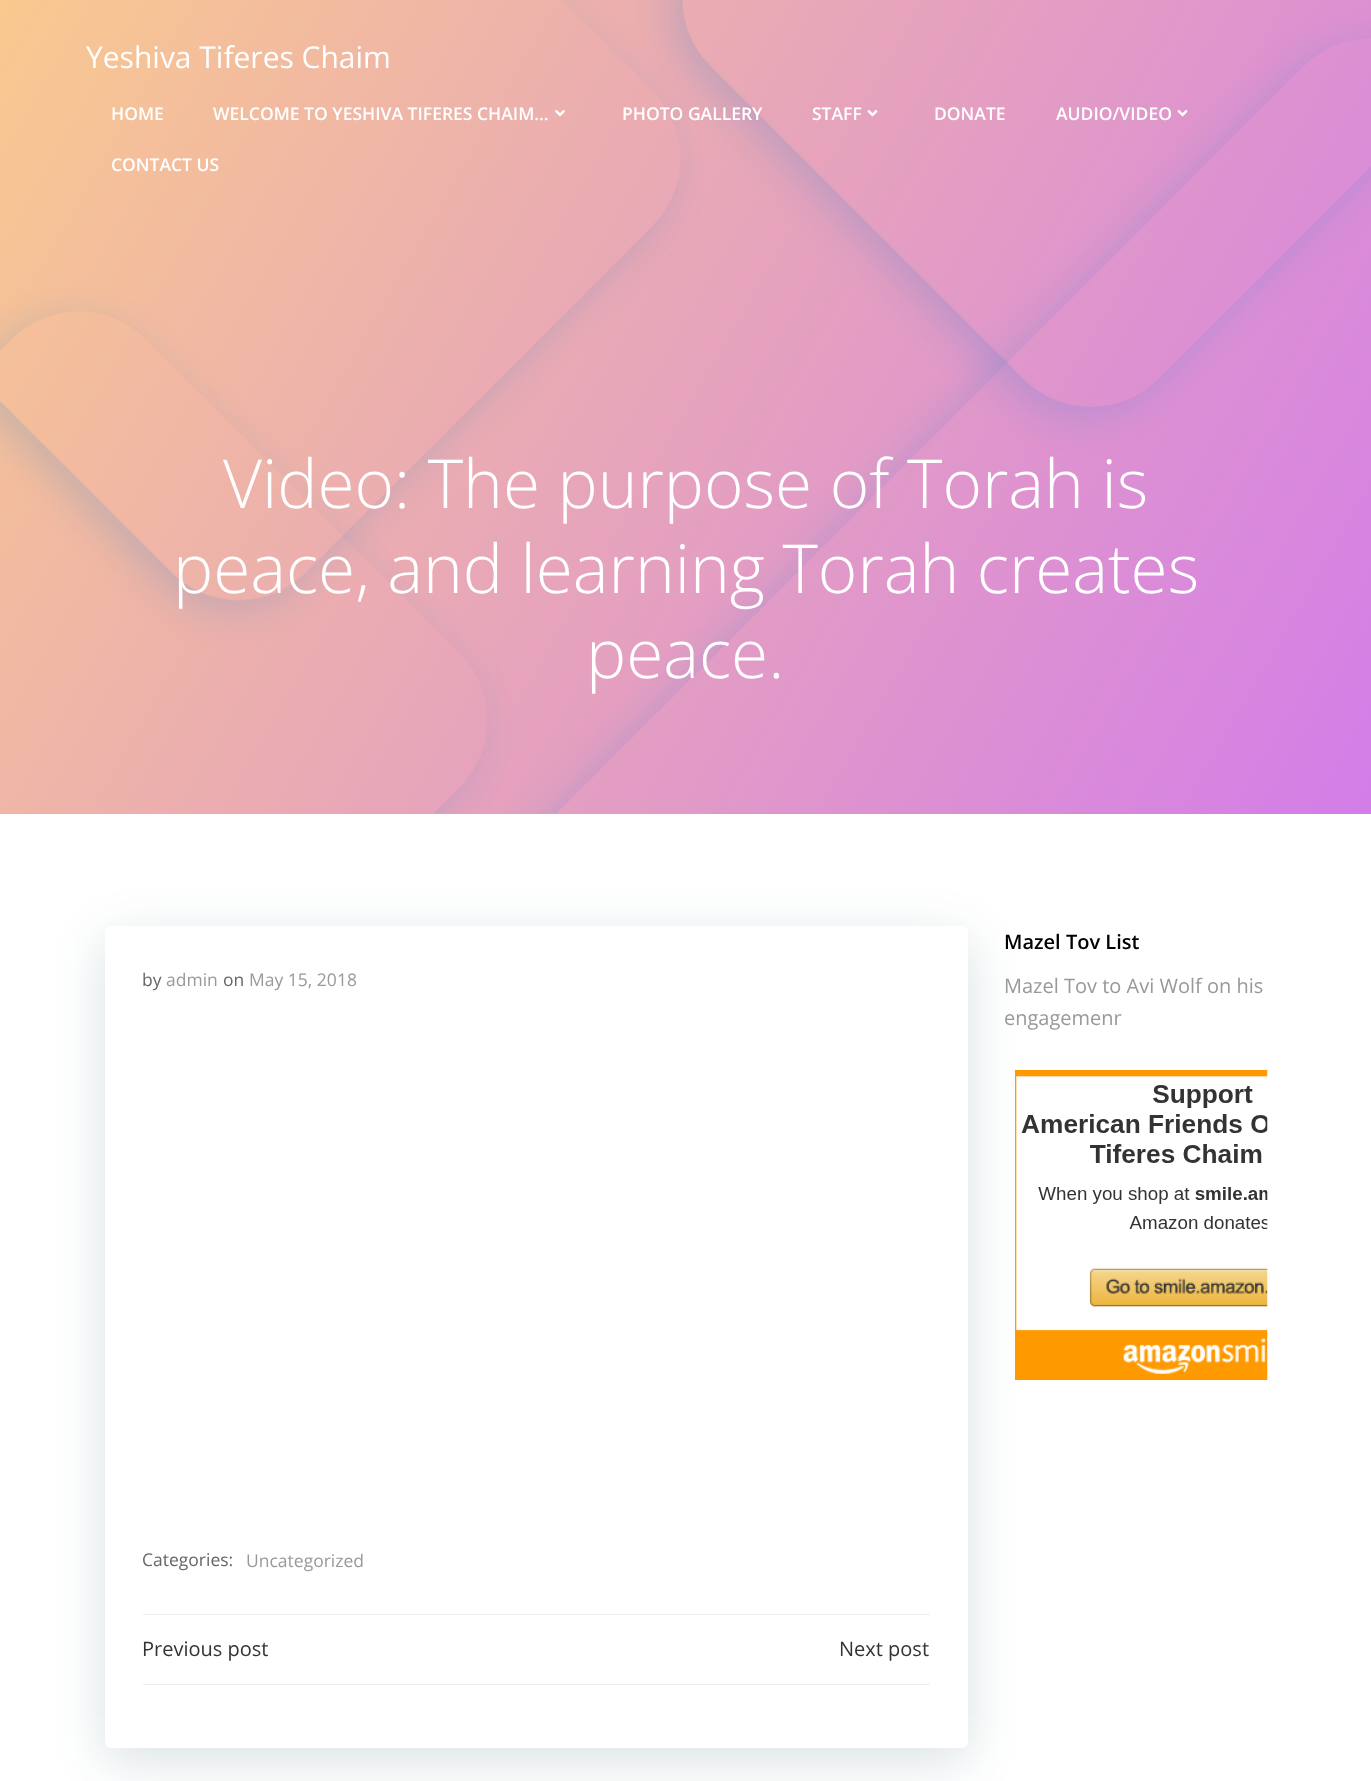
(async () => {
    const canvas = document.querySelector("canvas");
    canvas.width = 1371;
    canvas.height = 1781;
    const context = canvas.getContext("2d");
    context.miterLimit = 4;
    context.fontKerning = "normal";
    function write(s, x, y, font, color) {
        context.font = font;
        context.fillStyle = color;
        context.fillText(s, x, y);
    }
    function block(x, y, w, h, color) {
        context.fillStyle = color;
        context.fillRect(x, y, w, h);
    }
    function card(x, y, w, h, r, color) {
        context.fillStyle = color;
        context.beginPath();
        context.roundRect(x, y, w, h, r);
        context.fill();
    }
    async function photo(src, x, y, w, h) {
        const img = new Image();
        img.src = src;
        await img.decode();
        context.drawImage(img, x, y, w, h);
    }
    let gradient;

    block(0, 0, 1371, 1781, "rgb(255, 255, 255)");
    gradient = context.createLinearGradient(-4.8, 8, 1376, 805);
    gradient.addColorStop(0, "rgb(249, 201, 143)");
    gradient.addColorStop(1, "rgb(211, 125, 233)");
    context.fillStyle = gradient;
    context.fillRect(0, 0, 1371, 814);
    await photo("media/4.png", 0, 0, 1371, 814);
    write("Yeshiva Tiferes Chaim", 86, 68, "30px Open Sans", "rgb(255, 255, 255)");
    write("HOME", 111, 120, "600 17.5px Open Sans", "rgb(255, 255, 255)");
    write("WELCOME TO YESHIVA TIFERES CHAIM…", 213, 120, "600 17.5px Open Sans", "rgb(255, 255, 255)");
    await photo("media/1.png", 555, 110, 10, 7);
    write("PHOTO GALLERY", 622, 120, "600 17.5px Open Sans", "rgb(255, 255, 255)");
    write("STAFF", 812, 120, "600 17.5px Open Sans", "rgb(255, 255, 255)");
    await photo("media/2.png", 867, 110, 11, 7);
    write("DONATE", 934, 120, "600 17.5px Open Sans", "rgb(255, 255, 255)");
    write("AUDIO/VIDEO", 1056, 120, "600 17.5px Open Sans", "rgb(255, 255, 255)");
    await photo("media/3.png", 1177, 110, 11, 7);
    write("CONTACT US", 111, 171, "600 17.5px Open Sans", "rgb(255, 255, 255)");
    write("Video: The purpose of Torah is", 223, 508, "300 67.5px Open Sans", "rgb(255, 255, 255)");
    write("peace, and learning Torah creates", 173, 593, "300 67.5px Open Sans", "rgb(255, 255, 255)");
    write("peace.", 586, 678, "300 67.5px Open Sans", "rgb(255, 255, 255)");
    context.fillStyle = "rgba(1, 51, 74, 0.15)";
    context.filter = "blur(25px)";
    context.beginPath();
    context.roundRect(105, 939, 863, 821, 6);
    context.fill();
    context.filter = "none";
    card(105, 926, 863, 822, 6, "rgb(255, 255, 255)");
    write("by", 142, 986, "17.5px Open Sans", "rgb(102, 102, 102)");
    write("admin", 166, 986, "17.5px Open Sans", "rgb(153, 153, 153)");
    write("on", 223, 986, "17.5px Open Sans", "rgb(102, 102, 102)");
    write("May 15, 2018", 249, 986, "17.5px Open Sans", "rgb(153, 153, 153)");
    write("Categories:", 142, 1566, "17.5px Open Sans", "rgb(102, 102, 102)");
    write("Uncategorized", 246, 1567, "17.5px Open Sans", "rgb(153, 153, 153)");
    block(143, 1614, 787, 1, "rgb(238, 238, 238)");
    write("Previous post", 142, 1656, "20px Open Sans", "rgb(51, 51, 51)");
    write("Next post", 839, 1656, "20px Open Sans", "rgb(51, 51, 51)");
    block(143, 1684, 787, 1, "rgb(238, 238, 238)");
    write("Mazel Tov List", 1004, 949, "600 20px Open Sans", "rgb(0, 0, 0)");
    write("Mazel Tov to Avi Wolf on his", 1004, 993, "20px Open Sans", "rgb(153, 153, 153)");
    write("engagemenr", 1004, 1025, "20px Open Sans", "rgb(153, 153, 153)");
    await photo("media/5.png", 1015, 1070, 253, 310);
})();
